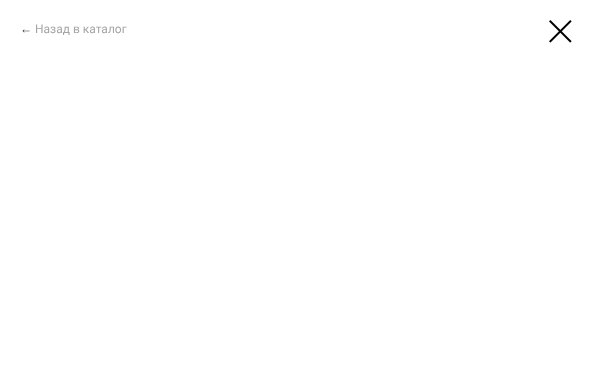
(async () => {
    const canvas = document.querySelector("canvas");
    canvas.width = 592;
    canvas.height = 384;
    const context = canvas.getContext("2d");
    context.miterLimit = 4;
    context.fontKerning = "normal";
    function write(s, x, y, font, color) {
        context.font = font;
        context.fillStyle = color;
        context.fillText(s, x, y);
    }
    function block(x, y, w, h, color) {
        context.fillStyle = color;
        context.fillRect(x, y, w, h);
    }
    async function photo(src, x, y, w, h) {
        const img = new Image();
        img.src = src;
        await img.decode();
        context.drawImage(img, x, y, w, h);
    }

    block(0, 0, 592, 384, "rgb(255, 255, 255)");
    write("←", 20, 33, "12px Liberation Sans", "rgb(51, 51, 51)");
    write("Назад в каталог", 35, 33, "12px Roboto", "rgb(165, 165, 165)");
    await photo("media/1.png", 549, 20, 23, 23);
})();
